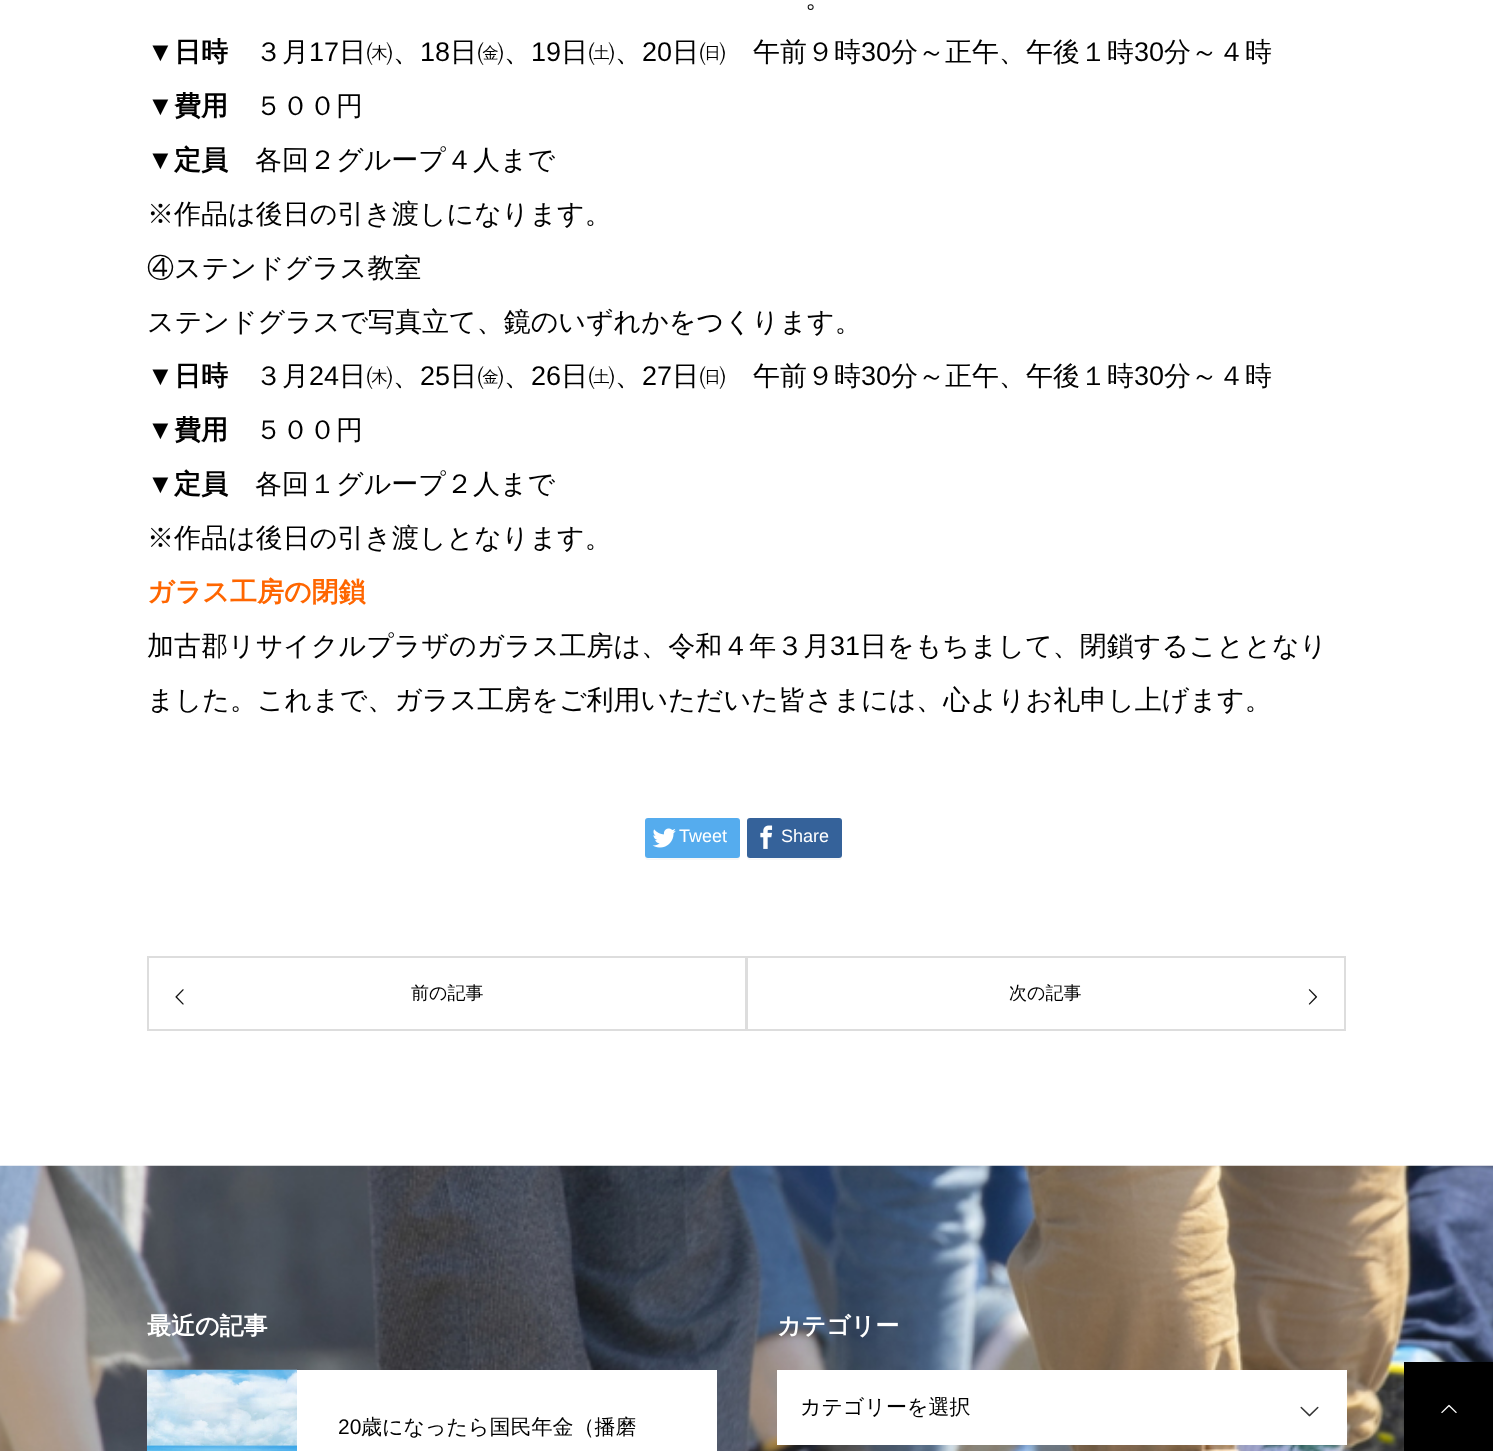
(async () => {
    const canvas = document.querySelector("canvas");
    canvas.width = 1493;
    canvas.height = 1451;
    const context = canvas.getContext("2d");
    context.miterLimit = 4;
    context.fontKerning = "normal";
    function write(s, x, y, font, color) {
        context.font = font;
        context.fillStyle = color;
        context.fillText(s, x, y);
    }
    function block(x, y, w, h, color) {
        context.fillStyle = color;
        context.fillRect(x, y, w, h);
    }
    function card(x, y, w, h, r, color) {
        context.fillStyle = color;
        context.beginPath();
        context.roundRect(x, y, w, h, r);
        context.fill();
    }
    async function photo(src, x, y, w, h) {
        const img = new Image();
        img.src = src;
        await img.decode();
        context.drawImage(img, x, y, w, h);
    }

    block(0, 0, 1493, 1451, "rgb(255, 255, 255)");
    write("。", 805, 7, "500 27px WenQuanYi Zen Hei", "rgb(0, 0, 0)");
    write("▼", 147, 61, "bold 27px Liberation Sans", "rgb(0, 0, 0)");
    write("日時", 174, 61, "bold 27px WenQuanYi Zen Hei", "rgb(0, 0, 0)");
    write("３月", 255, 61, "500 27px WenQuanYi Zen Hei", "rgb(0, 0, 0)");
    write("17", 309, 61, "27px Liberation Sans", "rgb(0, 0, 0)");
    write("日㈭、", 339, 61, "500 27px WenQuanYi Zen Hei", "rgb(0, 0, 0)");
    write("18", 420, 61, "27px Liberation Sans", "rgb(0, 0, 0)");
    write("日㈮、", 450, 61, "500 27px WenQuanYi Zen Hei", "rgb(0, 0, 0)");
    write("19", 531, 61, "27px Liberation Sans", "rgb(0, 0, 0)");
    write("日㈯、", 561, 61, "500 27px WenQuanYi Zen Hei", "rgb(0, 0, 0)");
    write("20", 642, 61, "27px Liberation Sans", "rgb(0, 0, 0)");
    write("日㈰　午前９時", 672, 61, "500 27px WenQuanYi Zen Hei", "rgb(0, 0, 0)");
    write("30", 861, 61, "27px Liberation Sans", "rgb(0, 0, 0)");
    write("分～正午、午後１時", 891, 61, "500 27px WenQuanYi Zen Hei", "rgb(0, 0, 0)");
    write("30", 1134, 61, "27px Liberation Sans", "rgb(0, 0, 0)");
    write("分～４時", 1164, 61, "500 27px WenQuanYi Zen Hei", "rgb(0, 0, 0)");
    write("▼", 147, 115, "bold 27px Liberation Sans", "rgb(0, 0, 0)");
    write("費用", 174, 115, "bold 27px WenQuanYi Zen Hei", "rgb(0, 0, 0)");
    write("５００円", 255, 115, "500 27px WenQuanYi Zen Hei", "rgb(0, 0, 0)");
    write("▼", 147, 169, "bold 27px Liberation Sans", "rgb(0, 0, 0)");
    write("定員", 174, 169, "bold 27px WenQuanYi Zen Hei", "rgb(0, 0, 0)");
    write("各回２グループ４人まで", 255, 169, "500 27px WenQuanYi Zen Hei", "rgb(0, 0, 0)");
    write("※作品は後日の引き渡しになります。", 147, 223, "500 27px WenQuanYi Zen Hei", "rgb(0, 0, 0)");
    write("④ステンドグラス教室", 147, 277, "500 27px WenQuanYi Zen Hei", "rgb(0, 0, 0)");
    write("ステンドグラスで写真立て、鏡のいずれかをつくります。", 147, 331, "500 27px WenQuanYi Zen Hei", "rgb(0, 0, 0)");
    write("▼", 147, 385, "bold 27px Liberation Sans", "rgb(0, 0, 0)");
    write("日時", 174, 385, "bold 27px WenQuanYi Zen Hei", "rgb(0, 0, 0)");
    write("３月", 255, 385, "500 27px WenQuanYi Zen Hei", "rgb(0, 0, 0)");
    write("24", 309, 385, "27px Liberation Sans", "rgb(0, 0, 0)");
    write("日㈭、", 339, 385, "500 27px WenQuanYi Zen Hei", "rgb(0, 0, 0)");
    write("25", 420, 385, "27px Liberation Sans", "rgb(0, 0, 0)");
    write("日㈮、", 450, 385, "500 27px WenQuanYi Zen Hei", "rgb(0, 0, 0)");
    write("26", 531, 385, "27px Liberation Sans", "rgb(0, 0, 0)");
    write("日㈯、", 561, 385, "500 27px WenQuanYi Zen Hei", "rgb(0, 0, 0)");
    write("27", 642, 385, "27px Liberation Sans", "rgb(0, 0, 0)");
    write("日㈰　午前９時", 672, 385, "500 27px WenQuanYi Zen Hei", "rgb(0, 0, 0)");
    write("30", 861, 385, "27px Liberation Sans", "rgb(0, 0, 0)");
    write("分～正午、午後１時", 891, 385, "500 27px WenQuanYi Zen Hei", "rgb(0, 0, 0)");
    write("30", 1134, 385, "27px Liberation Sans", "rgb(0, 0, 0)");
    write("分～４時", 1164, 385, "500 27px WenQuanYi Zen Hei", "rgb(0, 0, 0)");
    write("▼", 147, 439, "bold 27px Liberation Sans", "rgb(0, 0, 0)");
    write("費用", 174, 439, "bold 27px WenQuanYi Zen Hei", "rgb(0, 0, 0)");
    write("５００円", 255, 439, "500 27px WenQuanYi Zen Hei", "rgb(0, 0, 0)");
    write("▼", 147, 493, "bold 27px Liberation Sans", "rgb(0, 0, 0)");
    write("定員", 174, 493, "bold 27px WenQuanYi Zen Hei", "rgb(0, 0, 0)");
    write("各回１グループ２人まで", 255, 493, "500 27px WenQuanYi Zen Hei", "rgb(0, 0, 0)");
    write("※作品は後日の引き渡しとなります。", 147, 547, "500 27px WenQuanYi Zen Hei", "rgb(0, 0, 0)");
    write("ガラス工房の閉鎖", 147, 601, "bold 27px WenQuanYi Zen Hei", "rgb(255, 102, 0)");
    write("加古郡リサイクルプラザのガラス工房は、令和４年３月", 147, 655, "500 27px WenQuanYi Zen Hei", "rgb(0, 0, 0)");
    write("31", 830, 655, "27px Liberation Sans", "rgb(0, 0, 0)");
    write("日をもちまして、閉鎖することとなり", 860, 655, "500 27px WenQuanYi Zen Hei", "rgb(0, 0, 0)");
    write("ました。これまで、ガラス工房をご利用いただいた皆さまには、心よりお礼申し上げます。", 147, 709, "500 27px WenQuanYi Zen Hei", "rgb(0, 0, 0)");
    context.fillStyle = "rgb(247, 247, 247)";
    context.beginPath();
    context.moveTo(645, 855);
    context.lineTo(645, 857);
    context.bezierCurveTo(645, 859, 646, 860, 648, 860);
    context.lineTo(737, 860);
    context.bezierCurveTo(739, 860, 740, 859, 740, 857);
    context.lineTo(740, 822);
    context.lineTo(739, 820);
    context.lineTo(740, 849);
    context.bezierCurveTo(740, 851, 741, 858, 736, 858);
    context.lineTo(663, 858);
    context.bezierCurveTo(656, 858, 645, 861, 645, 855);
    context.closePath();
    context.fill();
    card(645, 818, 95, 40, 3, "rgb(85, 172, 238)");
    await photo("media/1.png", 652, 828, 24, 20);
    write("Tweet", 679, 842, "18px Liberation Sans", "rgb(255, 255, 255)");
    context.fillStyle = "rgb(247, 247, 247)";
    context.beginPath();
    context.moveTo(747, 855);
    context.lineTo(747, 857);
    context.bezierCurveTo(747, 859, 748, 860, 750, 860);
    context.lineTo(839, 860);
    context.bezierCurveTo(841, 860, 842, 859, 842, 857);
    context.lineTo(842, 822);
    context.lineTo(841, 820);
    context.lineTo(842, 849);
    context.bezierCurveTo(842, 851, 843, 858, 838, 858);
    context.lineTo(765, 858);
    context.bezierCurveTo(758, 858, 747, 861, 747, 855);
    context.closePath();
    context.fill();
    card(747, 818, 95, 40, 3, "rgb(53, 98, 154)");
    await photo("media/2.png", 760, 825, 13, 24);
    write("Share", 781, 842, "18px Liberation Sans", "rgb(255, 255, 255)");
    context.strokeStyle = "rgb(221, 221, 221)";
    context.lineWidth = 2;
    context.strokeRect(148, 957, 598, 73);
    await photo("media/3.png", 175, 989, 9, 16);
    write("前の記事", 411, 999, "500 18px WenQuanYi Zen Hei", "rgb(0, 0, 0)");
    context.strokeRect(747, 957, 598, 73);
    write("次の記事", 1009, 999, "500 18px WenQuanYi Zen Hei", "rgb(0, 0, 0)");
    await photo("media/4.png", 1308, 989, 10, 16);
    await photo("media/5.png", 0, 1165, 1493, 286);
    write("最近の記事", 147, 1334, "bold 24px WenQuanYi Zen Hei", "rgb(255, 255, 255)");
    block(297, 1370, 420, 81, "rgb(255, 255, 255)");
    await photo("media/6.png", 147, 1369, 150, 82);
    write("20", 338, 1434, "21px Liberation Sans", "rgb(0, 0, 0)");
    write("歳になったら国民年金（播磨", 361, 1434, "500 21px WenQuanYi Zen Hei", "rgb(0, 0, 0)");
    write("カテゴリー", 777, 1334, "bold 24px WenQuanYi Zen Hei", "rgb(255, 255, 255)");
    block(777, 1370, 570, 75, "rgb(255, 255, 255)");
    write("カテゴリーを選択", 800, 1414, "500 21px WenQuanYi Zen Hei", "rgb(0, 0, 0)");
    await photo("media/7.png", 1300, 1406, 19, 11);
    block(1404, 1362, 89, 89, "rgb(0, 0, 0)");
    await photo("media/8.png", 1441, 1404, 16, 9);
})();
